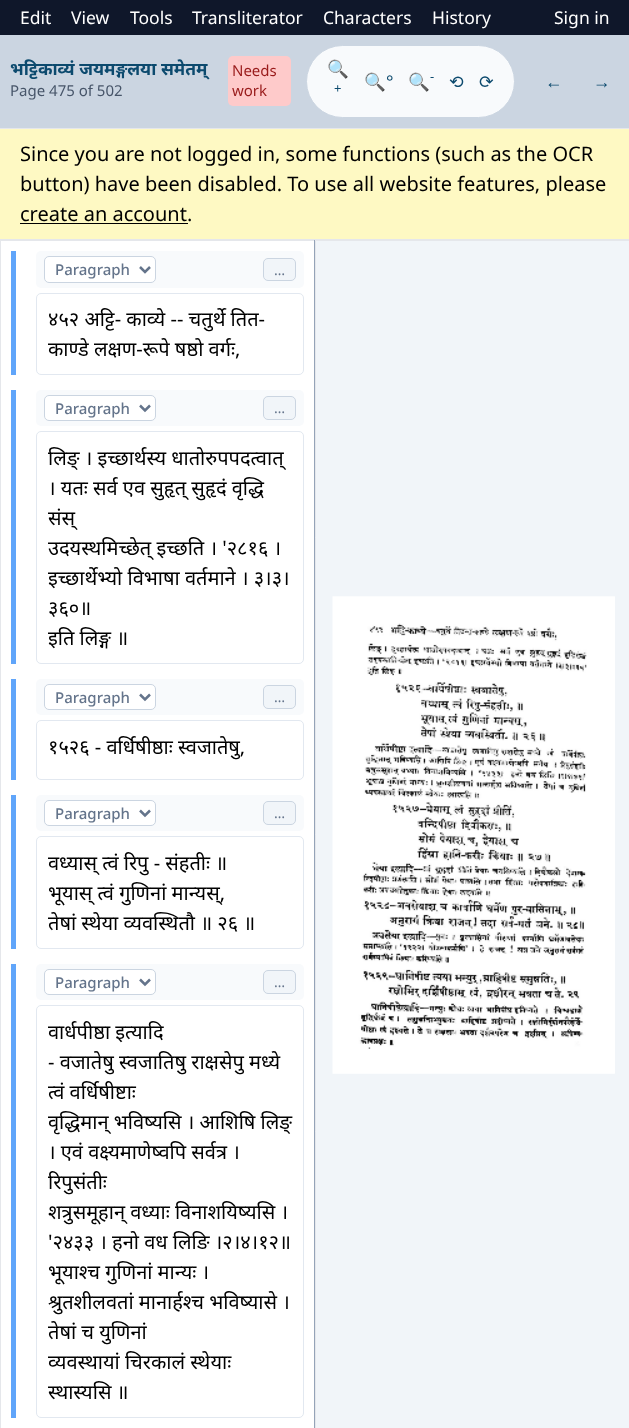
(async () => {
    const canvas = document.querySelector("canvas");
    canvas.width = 629;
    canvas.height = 1428;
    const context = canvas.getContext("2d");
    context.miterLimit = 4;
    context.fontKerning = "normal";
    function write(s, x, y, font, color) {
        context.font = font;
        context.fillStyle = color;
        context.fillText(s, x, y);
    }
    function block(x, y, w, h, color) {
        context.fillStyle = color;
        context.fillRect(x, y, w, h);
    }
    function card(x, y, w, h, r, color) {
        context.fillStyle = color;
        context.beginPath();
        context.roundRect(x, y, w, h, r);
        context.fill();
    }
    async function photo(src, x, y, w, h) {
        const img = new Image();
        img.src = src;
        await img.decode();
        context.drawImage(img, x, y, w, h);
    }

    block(0, 0, 629, 1428, "rgb(255, 255, 255)");
    block(0, 0, 629, 35, "rgb(15, 23, 42)");
    write("Edit", 20, 24, "17.5px Noto Sans", "rgb(255, 255, 255)");
    write("View", 71, 24, "17.5px Noto Sans", "rgb(255, 255, 255)");
    write("Tools", 130, 24, "17.5px Noto Sans", "rgb(255, 255, 255)");
    write("Transliterator", 192, 24, "17.5px Noto Sans", "rgb(255, 255, 255)");
    write("Characters", 323, 24, "17.5px Noto Sans", "rgb(255, 255, 255)");
    write("History", 432, 24, "17.5px Noto Sans", "rgb(255, 255, 255)");
    write("Sign in", 554, 24, "17.5px Noto Sans", "rgb(255, 255, 255)");
    block(0, 35, 629, 93, "rgb(203, 213, 225)");
    block(0, 128, 629, 1, "rgb(229, 231, 235)");
    write("भट्टिकाव्यं जयमङ्गलया समेतम्", 10, 75, "bold 17.5px Noto Sans", "rgb(12, 74, 110)");
    write("Page 475 of 502", 10, 96, "15px Noto Sans", "rgb(71, 85, 105)");
    card(228, 56, 63, 50, 5, "rgb(254, 202, 202)");
    write("Needs", 232, 76, "15px Noto Sans", "rgb(153, 27, 27)");
    write("work", 232, 96, "15px Noto Sans", "rgb(153, 27, 27)");
    context.fillStyle = "rgb(248, 250, 252)";
    context.beginPath();
    context.roundRect(306.5, 45.5, 208, 72, 36);
    context.fill();
    context.strokeStyle = "rgb(203, 213, 225)";
    context.stroke();
    write("🔍", 327, 75, "17.5px Noto Color Emoji", "rgb(12, 74, 110)");
    write("+", 334, 93, "13px Noto Sans", "rgb(12, 74, 110)");
    write("🔍", 364, 88, "17.5px Noto Color Emoji", "rgb(12, 74, 110)");
    write("°", 386, 88, "17.5px Noto Sans", "rgb(12, 74, 110)");
    write("🔍", 408, 88, "17.5px Noto Color Emoji", "rgb(12, 74, 110)");
    write("-", 430, 81, "13px Noto Sans", "rgb(12, 74, 110)");
    write("⟲", 449, 88, "17.5px DejaVu Sans", "rgb(12, 74, 110)");
    write("⟳", 479, 88, "17.5px DejaVu Sans", "rgb(12, 74, 110)");
    write("←", 545, 88, "17.5px Liberation Sans", "rgb(12, 74, 110)");
    write("→", 593, 88, "17.5px Liberation Sans", "rgb(12, 74, 110)");
    block(0, 129, 629, 110, "rgb(254, 249, 195)");
    block(0, 239, 629, 1, "rgb(229, 231, 235)");
    write("Since you are not logged in, some functions (such as the OCR", 20, 161, "20px Noto Sans", "rgb(0, 0, 0)");
    write("button) have been disabled. To use all website features, please", 20, 191, "20px Noto Sans", "rgb(0, 0, 0)");
    write("create an account.", 20, 221, "20px Noto Sans", "rgb(0, 0, 0)");
    block(20, 223, 168, 1, "rgb(0, 0, 0)");
    block(0, 240, 315, 1, "rgb(229, 231, 235)");
    block(314, 240, 1, 1188, "rgb(148, 163, 184)");
    block(0, 240, 1, 1188, "rgb(229, 231, 235)");
    block(11, 251, 5, 124, "rgb(96, 165, 250)");
    card(36, 251, 268, 37, 5, "rgb(248, 250, 252)");
    context.fillStyle = "rgb(255, 255, 255)";
    context.beginPath();
    context.roundRect(44.5, 256.5, 111, 26, 4.5);
    context.fill();
    context.stroke();
    context.beginPath();
    context.moveTo(140, 267);
    context.lineTo(145, 272);
    context.lineTo(150, 267);
    context.strokeStyle = "rgb(100, 116, 139)";
    context.lineWidth = 2.5;
    context.stroke();
    write("Paragraph", 55, 275, "500 15px Noto Sans", "rgb(100, 116, 139)");
    context.fillStyle = "rgb(241, 245, 249)";
    context.beginPath();
    context.roundRect(263.5, 258.5, 32, 22, 4.5);
    context.fill();
    context.strokeStyle = "rgb(203, 213, 225)";
    context.lineWidth = 1;
    context.stroke();
    write("…", 274, 275, "14px Noto Sans", "rgb(100, 116, 139)");
    context.beginPath();
    context.roundRect(36.5, 293.5, 267, 81, 4.5);
    context.strokeStyle = "rgb(226, 232, 240)";
    context.stroke();
    write("४५२ अट्टि- काव्ये -- चतुर्थे तित-", 48, 326, "20px Noto Sans", "rgb(0, 0, 0)");
    write("काण्डे लक्षण-रूपे षष्ठो वर्गः,", 48, 356, "20px Noto Sans", "rgb(0, 0, 0)");
    block(11, 390, 5, 274, "rgb(96, 165, 250)");
    card(36, 390, 268, 36, 5, "rgb(248, 250, 252)");
    context.fillStyle = "rgb(255, 255, 255)";
    context.beginPath();
    context.roundRect(44.5, 395.5, 111, 25, 4.5);
    context.fill();
    context.strokeStyle = "rgb(203, 213, 225)";
    context.stroke();
    context.beginPath();
    context.moveTo(140, 405.5);
    context.lineTo(145, 410.5);
    context.lineTo(150, 405.5);
    context.strokeStyle = "rgb(100, 116, 139)";
    context.lineWidth = 2.5;
    context.stroke();
    write("Paragraph", 55, 414, "500 15px Noto Sans", "rgb(100, 116, 139)");
    context.fillStyle = "rgb(241, 245, 249)";
    context.beginPath();
    context.roundRect(263.5, 396.5, 32, 23, 4.5);
    context.fill();
    context.strokeStyle = "rgb(203, 213, 225)";
    context.lineWidth = 1;
    context.stroke();
    write("…", 274, 413, "14px Noto Sans", "rgb(100, 116, 139)");
    context.beginPath();
    context.roundRect(36.5, 431.5, 267, 232, 4.5);
    context.strokeStyle = "rgb(226, 232, 240)";
    context.stroke();
    write("लिङ् । इच्छार्थस्य धातोरुपपदत्वात्", 48, 465, "20px Noto Sans", "rgb(0, 0, 0)");
    write("। यतः सर्व एव सुहृत् सुहृदं वृद्धि", 48, 495, "20px Noto Sans", "rgb(0, 0, 0)");
    write("संस्", 48, 525, "20px Noto Sans", "rgb(0, 0, 0)");
    write("उदयस्थमिच्छेत् इच्छति । '२८१६ ।", 48, 555, "20px Noto Sans", "rgb(0, 0, 0)");
    write("इच्छार्थेभ्यो विभाषा वर्तमाने । ३।३।", 48, 585, "20px Noto Sans", "rgb(0, 0, 0)");
    write("३६०॥", 48, 615, "20px Noto Sans", "rgb(0, 0, 0)");
    write("इति लिङ्ग ॥", 48, 645, "20px Noto Sans", "rgb(0, 0, 0)");
    block(11, 679, 5, 101, "rgb(96, 165, 250)");
    card(36, 679, 268, 36, 5, "rgb(248, 250, 252)");
    context.fillStyle = "rgb(255, 255, 255)";
    context.beginPath();
    context.roundRect(44.5, 684.5, 111, 25, 4.5);
    context.fill();
    context.strokeStyle = "rgb(203, 213, 225)";
    context.stroke();
    context.beginPath();
    context.moveTo(140, 694.5);
    context.lineTo(145, 699.5);
    context.lineTo(150, 694.5);
    context.strokeStyle = "rgb(100, 116, 139)";
    context.lineWidth = 2.5;
    context.stroke();
    write("Paragraph", 55, 703, "500 15px Noto Sans", "rgb(100, 116, 139)");
    context.fillStyle = "rgb(241, 245, 249)";
    context.beginPath();
    context.roundRect(263.5, 685.5, 32, 23, 4.5);
    context.fill();
    context.strokeStyle = "rgb(203, 213, 225)";
    context.lineWidth = 1;
    context.stroke();
    write("…", 274, 702, "14px Noto Sans", "rgb(100, 116, 139)");
    context.beginPath();
    context.roundRect(36.5, 720.5, 267, 59, 4.5);
    context.strokeStyle = "rgb(226, 232, 240)";
    context.stroke();
    write("१५२६ - वर्धिषीष्ठाः स्वजातेषु,", 48, 754, "20px Noto Sans", "rgb(0, 0, 0)");
    block(11, 795, 5, 154, "rgb(96, 165, 250)");
    card(36, 795, 268, 36, 5, "rgb(248, 250, 252)");
    context.fillStyle = "rgb(255, 255, 255)";
    context.beginPath();
    context.roundRect(44.5, 800.5, 111, 25, 4.5);
    context.fill();
    context.strokeStyle = "rgb(203, 213, 225)";
    context.stroke();
    context.beginPath();
    context.moveTo(140, 810.5);
    context.lineTo(145, 815.5);
    context.lineTo(150, 810.5);
    context.strokeStyle = "rgb(100, 116, 139)";
    context.lineWidth = 2.5;
    context.stroke();
    write("Paragraph", 55, 819, "500 15px Noto Sans", "rgb(100, 116, 139)");
    context.fillStyle = "rgb(241, 245, 249)";
    context.beginPath();
    context.roundRect(263.5, 801.5, 32, 23, 4.5);
    context.fill();
    context.strokeStyle = "rgb(203, 213, 225)";
    context.lineWidth = 1;
    context.stroke();
    write("…", 274, 818, "14px Noto Sans", "rgb(100, 116, 139)");
    context.beginPath();
    context.roundRect(36.5, 836.5, 267, 112, 4.5);
    context.strokeStyle = "rgb(226, 232, 240)";
    context.stroke();
    write("वध्यास् त्वं रिपु - संहतीः ॥", 48, 870, "20px Noto Sans", "rgb(0, 0, 0)");
    write("भूयास् त्वं गुणिनां मान्यस्,", 48, 900, "20px Noto Sans", "rgb(0, 0, 0)");
    write("तेषां स्थेया व्यवस्थितौ ॥ २६ ॥", 48, 930, "20px Noto Sans", "rgb(0, 0, 0)");
    block(11, 964, 5, 454, "rgb(96, 165, 250)");
    card(36, 964, 268, 36, 5, "rgb(248, 250, 252)");
    context.fillStyle = "rgb(255, 255, 255)";
    context.beginPath();
    context.roundRect(44.5, 969.5, 111, 25, 4.5);
    context.fill();
    context.strokeStyle = "rgb(203, 213, 225)";
    context.stroke();
    context.beginPath();
    context.moveTo(140, 979.5);
    context.lineTo(145, 984.5);
    context.lineTo(150, 979.5);
    context.strokeStyle = "rgb(100, 116, 139)";
    context.lineWidth = 2.5;
    context.stroke();
    write("Paragraph", 55, 988, "500 15px Noto Sans", "rgb(100, 116, 139)");
    context.fillStyle = "rgb(241, 245, 249)";
    context.beginPath();
    context.roundRect(263.5, 970.5, 32, 23, 4.5);
    context.fill();
    context.strokeStyle = "rgb(203, 213, 225)";
    context.lineWidth = 1;
    context.stroke();
    write("…", 274, 987, "14px Noto Sans", "rgb(100, 116, 139)");
    context.beginPath();
    context.roundRect(36.5, 1005.5, 267, 412, 4.5);
    context.strokeStyle = "rgb(226, 232, 240)";
    context.stroke();
    write("वार्धपीष्ठा इत्यादि", 48, 1039, "20px Noto Sans", "rgb(0, 0, 0)");
    write("- वजातेषु स्वजातिषु राक्षसेपु मध्ये", 48, 1069, "20px Noto Sans", "rgb(0, 0, 0)");
    write("त्वं वर्धिषीष्टाः", 48, 1099, "20px Noto Sans", "rgb(0, 0, 0)");
    write("वृद्धिमान् भविष्यसि । आशिषि लिङ्", 48, 1129, "20px Noto Sans", "rgb(0, 0, 0)");
    write("। एवं वक्ष्यमाणेष्वपि सर्वत्र ।", 48, 1159, "20px Noto Sans", "rgb(0, 0, 0)");
    write("रिपुसंतीः", 48, 1189, "20px Noto Sans", "rgb(0, 0, 0)");
    write("शत्रुसमूहान् वध्याः विनाशयिष्यसि ।", 48, 1219, "20px Noto Sans", "rgb(0, 0, 0)");
    write("'२४३३ । हनो वध लिङि ।२।४।१२॥", 48, 1249, "20px Noto Sans", "rgb(0, 0, 0)");
    write("भूयाश्च गुणिनां मान्यः ।", 48, 1279, "20px Noto Sans", "rgb(0, 0, 0)");
    write("श्रुतशीलवतां मानार्हश्च भविष्यासे ।", 48, 1309, "20px Noto Sans", "rgb(0, 0, 0)");
    write("तेषां च युणिनां", 48, 1339, "20px Noto Sans", "rgb(0, 0, 0)");
    write("व्यवस्थायां चिरकालं स्थेयाः", 48, 1369, "20px Noto Sans", "rgb(0, 0, 0)");
    write("स्थास्यसि ॥", 48, 1399, "20px Noto Sans", "rgb(0, 0, 0)");
    context.fillStyle = "rgb(241, 245, 249)";
    context.beginPath();
    context.rect(315.5, 240.5, 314, 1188);
    context.fill();
    context.strokeStyle = "rgb(229, 231, 235)";
    context.stroke();
    await photo("media/1.png", 332, 596, 283, 478);
})();
